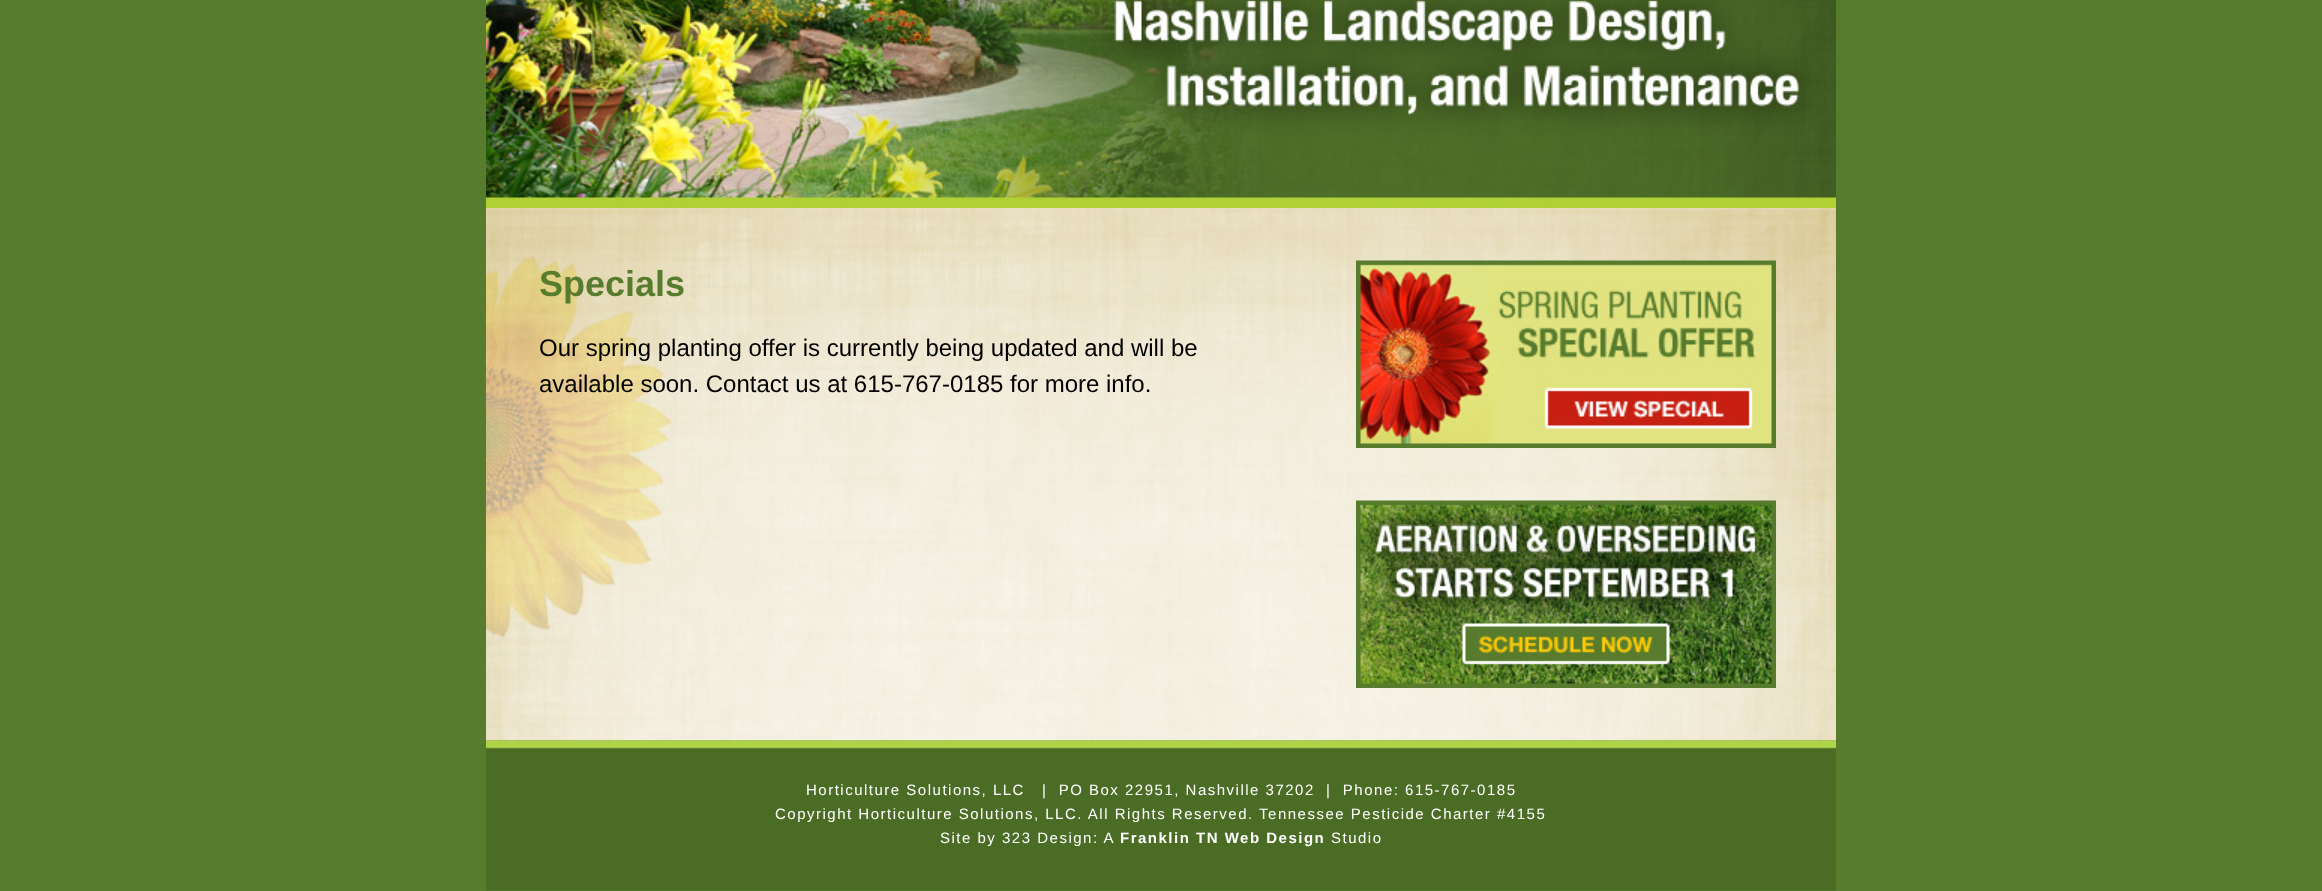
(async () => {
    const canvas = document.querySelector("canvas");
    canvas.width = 2322;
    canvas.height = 891;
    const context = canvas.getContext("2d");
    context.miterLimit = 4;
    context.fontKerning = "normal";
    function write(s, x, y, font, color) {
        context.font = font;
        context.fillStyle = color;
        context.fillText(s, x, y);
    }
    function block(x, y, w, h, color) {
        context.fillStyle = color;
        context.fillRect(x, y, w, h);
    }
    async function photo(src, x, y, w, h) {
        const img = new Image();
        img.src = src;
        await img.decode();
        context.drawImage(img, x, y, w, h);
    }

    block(0, 0, 2322, 891, "rgb(87, 124, 46)");
    await photo("media/1.png", 486, 0, 1350, 208);
    await photo("media/2.png", 486, 208, 1350, 533);
    write("Specials", 539, 296, "bold 36px Liberation Sans", "rgb(88, 124, 46)");
    write("Our spring planting offer is currently being updated and will be", 539, 356, "24px Liberation Sans", "rgb(0, 0, 0)");
    write("available soon. Contact us at 615-767-0185 for more info.", 539, 392, "24px Liberation Sans", "rgb(0, 0, 0)");
    await photo("media/3.png", 1356, 260, 420, 188);
    await photo("media/4.png", 1356, 500, 420, 188);
    await photo("media/5.png", 486, 740, 1350, 151);
    context.letterSpacing = "1.5px";
    write("Horticulture Solutions, LLC   |  PO Box 22951, Nashville 37202  |  Phone: 615-767-0185", 806, 795, "15px Liberation Sans", "rgb(255, 255, 255)");
    write("Copyright Horticulture Solutions, LLC. All Rights Reserved. Tennessee Pesticide Charter #4155", 775, 819, "15px Liberation Sans", "rgb(255, 255, 255)");
    write("Site by 323 Design: A", 940, 843, "15px Liberation Sans", "rgb(255, 255, 255)");
    write("Franklin TN Web Design", 1120, 843, "bold 15px Liberation Sans", "rgb(255, 255, 255)");
    write("Studio", 1331, 843, "15px Liberation Sans", "rgb(255, 255, 255)");
})();
